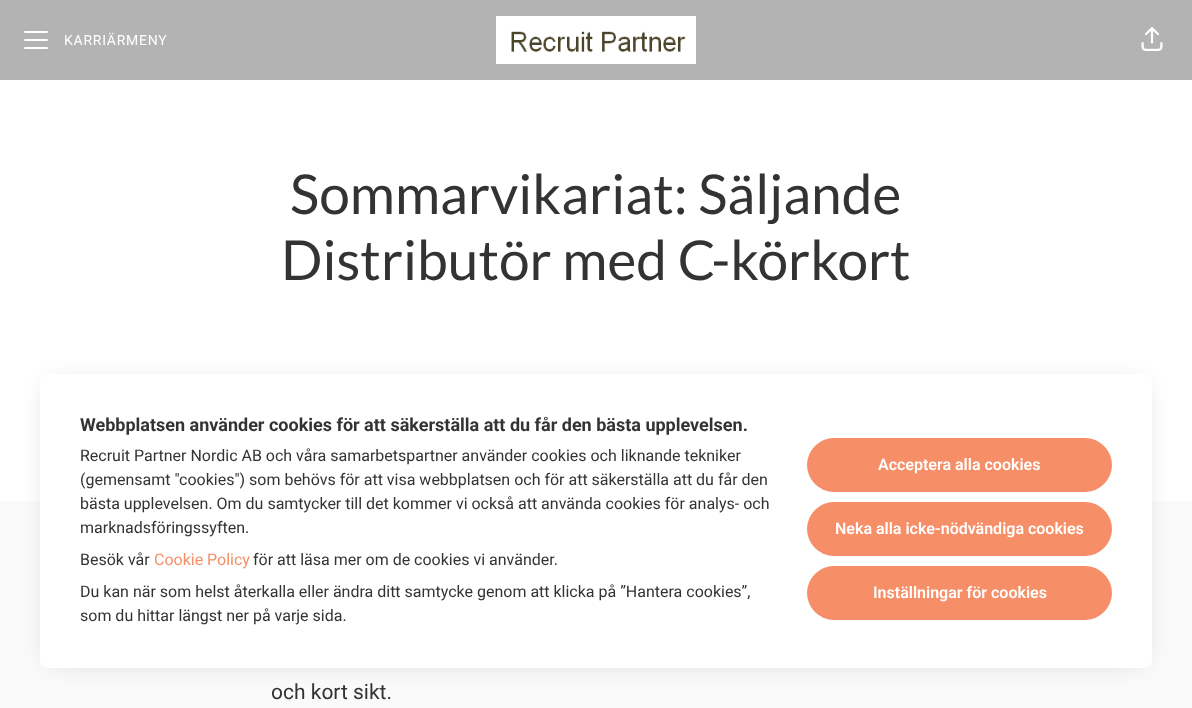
(async () => {
    const canvas = document.querySelector("canvas");
    canvas.width = 1192;
    canvas.height = 708;
    const context = canvas.getContext("2d");
    context.miterLimit = 4;
    context.fontKerning = "normal";
    function write(s, x, y, font, color) {
        context.font = font;
        context.fillStyle = color;
        context.fillText(s, x, y);
    }
    function block(x, y, w, h, color) {
        context.fillStyle = color;
        context.fillRect(x, y, w, h);
    }
    function card(x, y, w, h, r, color) {
        context.fillStyle = color;
        context.beginPath();
        context.roundRect(x, y, w, h, r);
        context.fill();
    }
    async function photo(src, x, y, w, h) {
        const img = new Image();
        img.src = src;
        await img.decode();
        context.drawImage(img, x, y, w, h);
    }

    block(0, 0, 1192, 708, "rgb(255, 255, 255)");
    block(0, 0, 1192, 80, "rgb(179, 179, 179)");
    card(24, 31, 24, 2, 1, "rgb(255, 255, 255)");
    card(24, 39, 24, 2, 1, "rgb(255, 255, 255)");
    card(24, 47, 24, 2, 1, "rgb(255, 255, 255)");
    context.letterSpacing = "0.75px";
    write("KARRIÄRMENY", 64, 45, "14px Roboto", "rgb(255, 255, 255)");
    await photo("media/1.png", 496, 16, 200, 48);
    await photo("media/2.png", 1141, 27, 22, 24);
    context.letterSpacing = "0px";
    write("Sommarvikariat: Säljande", 290, 214, "55px Lato", "rgb(51, 51, 51)");
    write("Distributör med C-körkort", 281, 280, "55px Lato", "rgb(51, 51, 51)");
    block(0, 501, 1192, 207, "rgb(250, 250, 250)");
    write("och kort sikt.", 271, 699, "21px Roboto", "rgb(51, 51, 51)");
    context.fillStyle = "rgba(0, 0, 0, 0.18)";
    context.filter = "blur(13.5px)";
    context.beginPath();
    context.rect(50, 386, 1092, 274);
    context.fill();
    context.filter = "none";
    card(40, 374, 1112, 294, 8, "rgb(255, 255, 255)");
    write("Webbplatsen använder cookies för att säkerställa att du får den bästa upplevelsen.", 80, 431, "bold 18px Roboto", "rgb(51, 51, 51)");
    write("Recruit Partner Nordic AB och våra samarbetspartner använder cookies och liknande tekniker", 80, 461, "16px Roboto", "rgb(51, 51, 51)");
    write("(gemensamt \"cookies\") som behövs för att visa webbplatsen och för att säkerställa att du får den", 80, 485, "16px Roboto", "rgb(51, 51, 51)");
    write("bästa upplevelsen. Om du samtycker till det kommer vi också att använda cookies för analys- och", 80, 509, "16px Roboto", "rgb(51, 51, 51)");
    write("marknadsföringssyften.", 80, 533, "16px Roboto", "rgb(51, 51, 51)");
    write("Besök vår", 80, 565, "16px Roboto", "rgb(51, 51, 51)");
    write("Cookie Policy", 154, 565, "16px Roboto", "rgb(246, 143, 103)");
    write("för att läsa mer om de cookies vi använder.", 253, 565, "16px Roboto", "rgb(51, 51, 51)");
    write("Du kan när som helst återkalla eller ändra ditt samtycke genom att klicka på ”Hantera cookies”,", 80, 597, "16px Roboto", "rgb(51, 51, 51)");
    write("som du hittar längst ner på varje sida.", 80, 621, "16px Roboto", "rgb(51, 51, 51)");
    card(807, 438, 305, 54, 27, "rgb(246, 143, 103)");
    write("Acceptera alla cookies", 878, 470, "600 16px Roboto", "rgb(255, 255, 255)");
    card(807, 502, 305, 54, 27, "rgb(246, 143, 103)");
    write("Neka alla icke-nödvändiga cookies", 835, 534, "600 16px Roboto", "rgb(255, 255, 255)");
    card(807, 566, 305, 54, 27, "rgb(246, 143, 103)");
    write("Inställningar för cookies", 873, 598, "600 16px Roboto", "rgb(255, 255, 255)");
})();
